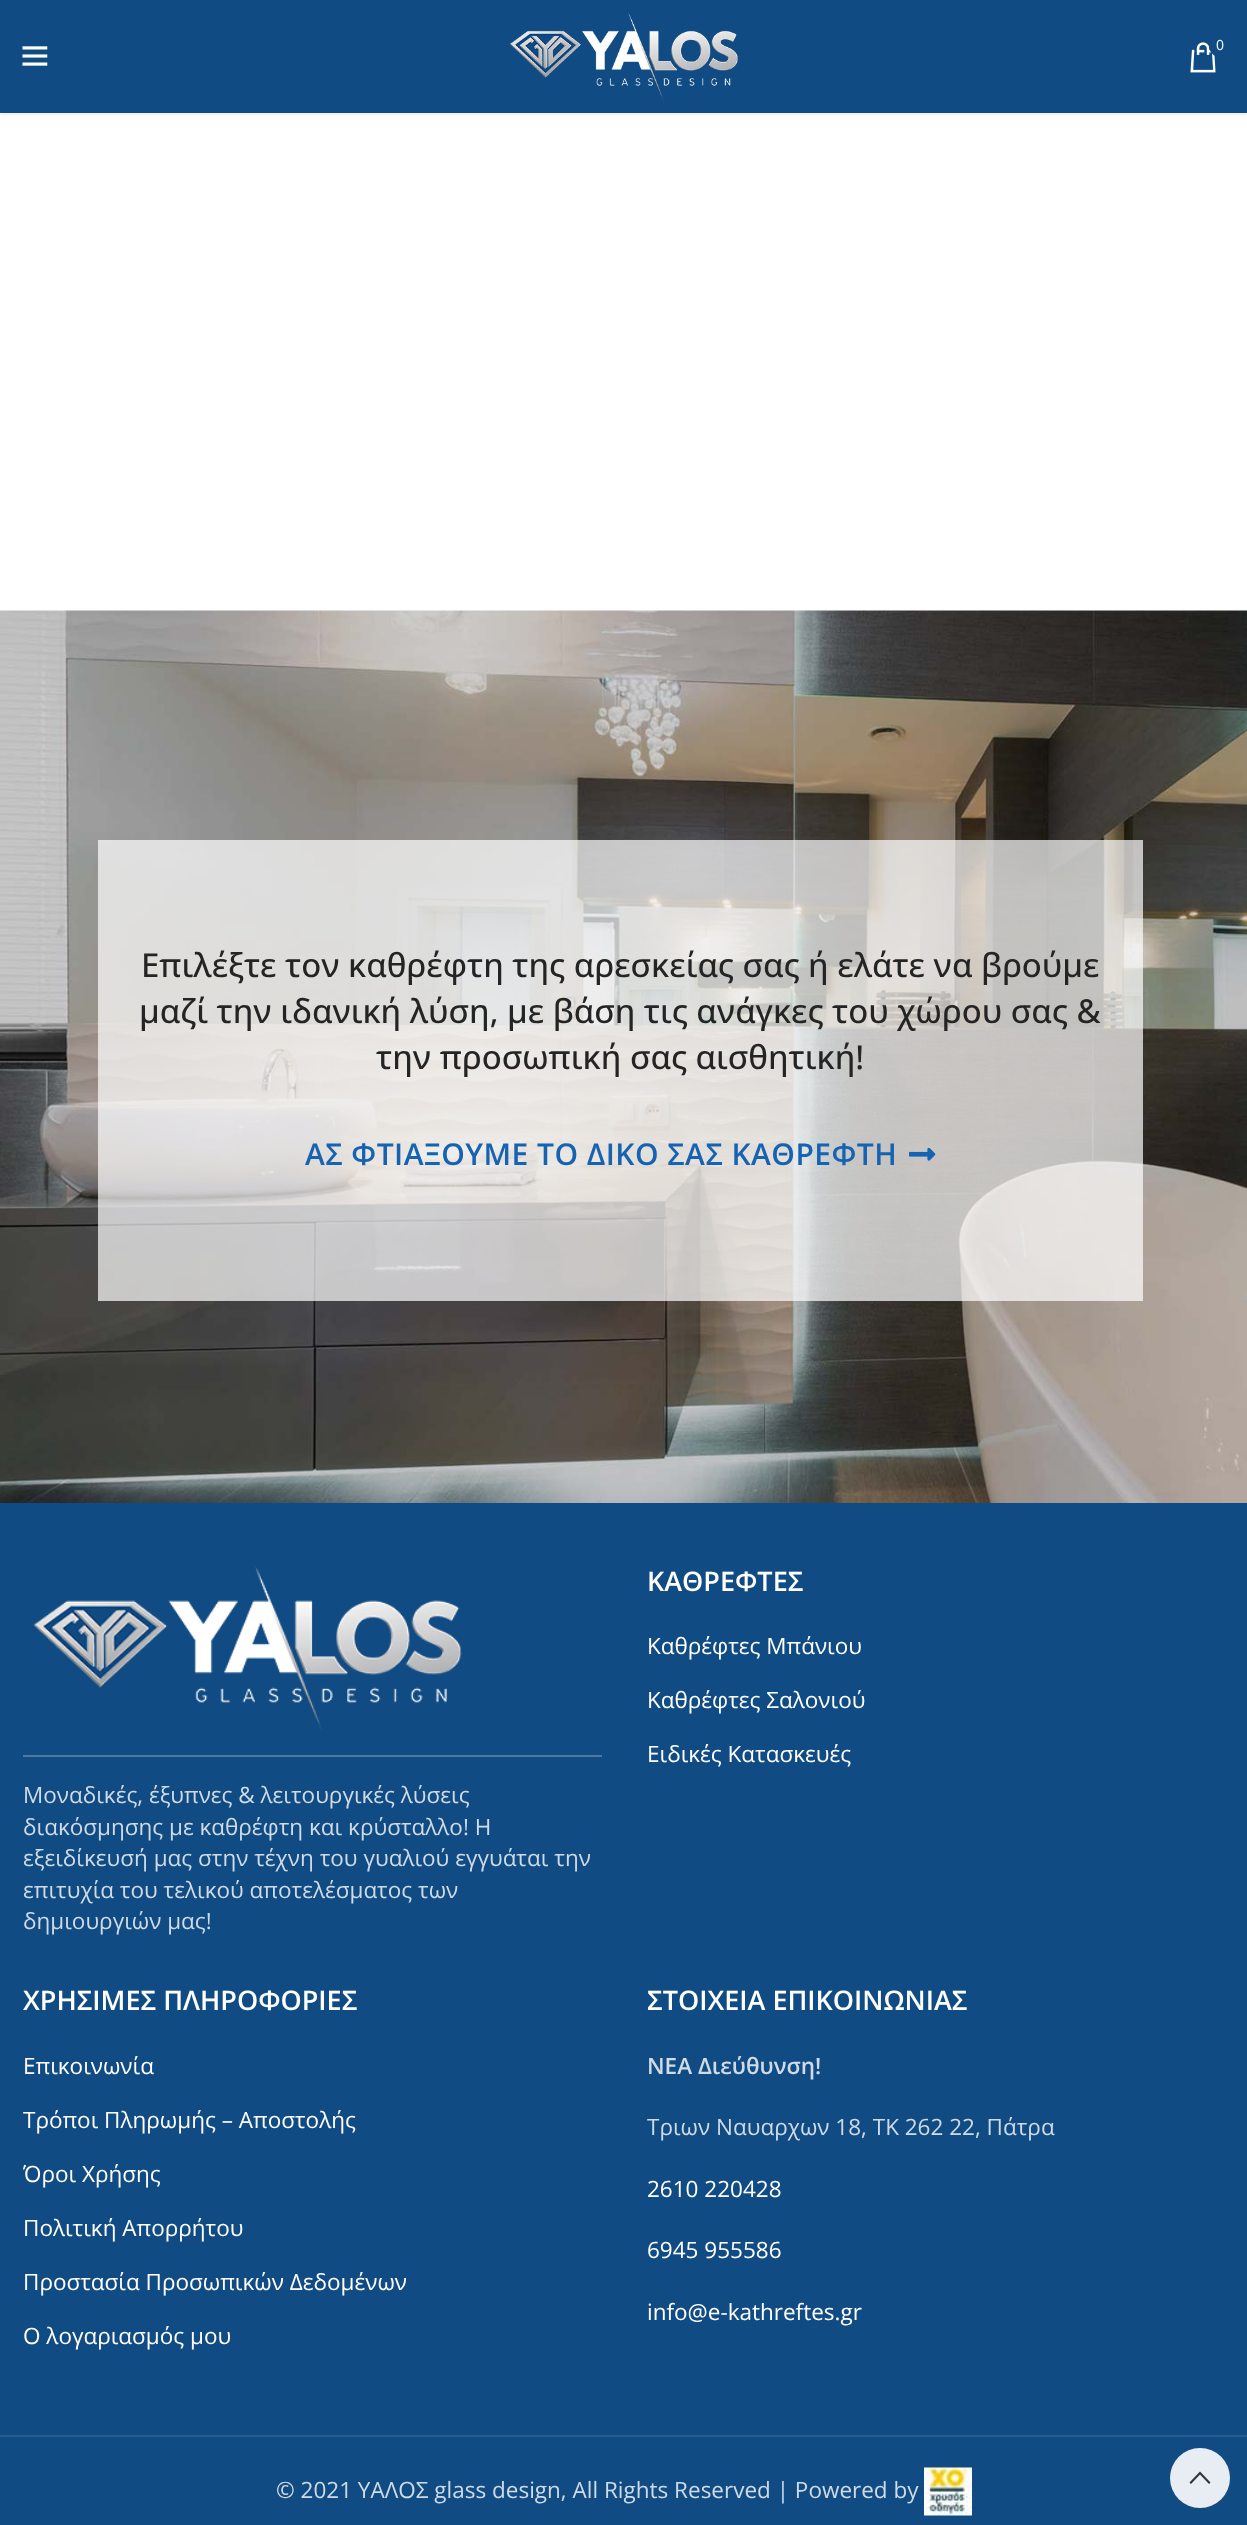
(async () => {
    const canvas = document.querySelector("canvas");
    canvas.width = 1247;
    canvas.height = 2525;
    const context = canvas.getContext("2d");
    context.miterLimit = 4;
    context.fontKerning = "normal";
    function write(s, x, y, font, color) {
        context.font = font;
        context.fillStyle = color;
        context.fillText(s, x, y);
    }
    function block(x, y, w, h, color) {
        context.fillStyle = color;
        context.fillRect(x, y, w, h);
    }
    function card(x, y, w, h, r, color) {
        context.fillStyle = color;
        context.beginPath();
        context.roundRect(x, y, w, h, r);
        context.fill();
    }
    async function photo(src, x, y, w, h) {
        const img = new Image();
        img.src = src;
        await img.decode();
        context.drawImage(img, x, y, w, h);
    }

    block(0, 0, 1247, 2525, "rgb(255, 255, 255)");
    context.fillStyle = "rgba(0, 0, 0, 0.1)";
    context.filter = "blur(2px)";
    context.beginPath();
    context.rect(0, 2, 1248, 112);
    context.fill();
    context.filter = "none";
    block(0, 0, 1247, 113, "rgb(16, 75, 131)");
    await photo("media/1.png", 22, 46, 26, 20);
    await photo("media/2.png", 510, 12, 228, 89);
    await photo("media/3.png", 1190, 42, 26, 31);
    card(1209, 35, 23, 22, 11, "rgb(16, 75, 131)");
    write("0", 1216, 50, "14px Open Sans", "rgb(255, 255, 255)");
    await photo("media/4.png", 0, 610, 1247, 893);
    block(98, 840, 1045, 461, "rgba(255, 255, 255, 0.7)");
    write("Επιλέξτε τον καθρέφτη της αρεσκείας σας ή ελάτε να βρούμε", 141, 977, "500 33px Open Sans", "rgb(36, 36, 36)");
    write("μαζί την ιδανική λύση, με βάση τις ανάγκες του χώρου σας &", 139, 1023, "500 33px Open Sans", "rgb(36, 36, 36)");
    write("την προσωπική σας αισθητική!", 376, 1069, "500 33px Open Sans", "rgb(36, 36, 36)");
    context.letterSpacing = "0.45px";
    write("ΑΣ ΦΤΙΑΞΟΥΜΕ ΤΟ ΔΙΚΟ ΣΑΣ ΚΑΘΡΕΦΤΗ", 305, 1165, "600 30px Open Sans", "rgb(22, 99, 178)");
    await photo("media/5.png", 909, 1147, 27, 14);
    block(0, 1503, 1247, 1022, "rgb(16, 75, 131)");
    context.letterSpacing = "0px";
    write("ΚΑΘΡΕΦΤΕΣ", 647, 1591, "600 27px Open Sans", "rgb(255, 255, 255)");
    write("Καθρέφτες Μπάνιου", 647, 1654, "22.5px Open Sans", "rgb(255, 255, 255)");
    write("Καθρέφτες Σαλονιού", 647, 1708, "22.5px Open Sans", "rgb(255, 255, 255)");
    write("Ειδικές Κατασκευές", 647, 1762, "22.5px Open Sans", "rgb(255, 255, 255)");
    block(23, 1755, 579, 2, "rgb(76, 120, 162)");
    await photo("media/6.png", 33, 1566, 429, 165);
    write("Μοναδικές, έξυπνες & λειτουργικές λύσεις", 23, 1803, "22.5px Open Sans", "rgb(207, 219, 230)");
    write("διακόσμησης με καθρέφτη και κρύσταλλο! Η", 23, 1835, "22.5px Open Sans", "rgb(207, 219, 230)");
    write("εξειδίκευσή μας στην τέχνη του γυαλιού εγγυάται την", 23, 1866, "22.5px Open Sans", "rgb(207, 219, 230)");
    write("επιτυχία του τελικού αποτελέσματος των", 23, 1898, "22.5px Open Sans", "rgb(207, 219, 230)");
    write("δημιουργιών μας!", 23, 1929, "22.5px Open Sans", "rgb(207, 219, 230)");
    write("ΧΡΗΣΙΜΕΣ ΠΛΗΡΟΦΟΡΙΕΣ", 23, 2010, "600 27px Open Sans", "rgb(255, 255, 255)");
    write("Επικοινωνία", 23, 2074, "22.5px Open Sans", "rgb(255, 255, 255)");
    write("Τρόποι Πληρωμής – Αποστολής", 23, 2128, "22.5px Open Sans", "rgb(255, 255, 255)");
    write("Όροι Χρήσης", 23, 2182, "22.5px Open Sans", "rgb(255, 255, 255)");
    write("Πολιτική Απορρήτου", 23, 2236, "22.5px Open Sans", "rgb(255, 255, 255)");
    write("Προστασία Προσωπικών Δεδομένων", 23, 2290, "22.5px Open Sans", "rgb(255, 255, 255)");
    write("Ο λογαριασμός μου", 23, 2344, "22.5px Open Sans", "rgb(255, 255, 255)");
    write("ΣΤΟΙΧΕΙΑ ΕΠΙΚΟΙΝΩΝΙΑΣ", 647, 2010, "600 27px Open Sans", "rgb(255, 255, 255)");
    write("ΝΕΑ Διεύθυνση!", 647, 2074, "600 22.5px Open Sans", "rgb(207, 219, 230)");
    write("Τριων Ναυαρχων 18, ΤΚ 262 22, Πάτρα", 647, 2135, "22.5px Open Sans", "rgb(207, 219, 230)");
    write("2610 220428", 647, 2197, "22.5px Open Sans", "rgb(255, 255, 255)");
    write("6945 955586", 647, 2258, "22.5px Open Sans", "rgb(255, 255, 255)");
    write("info@e-kathreftes.gr", 647, 2320, "22.5px Open Sans", "rgb(255, 255, 255)");
    block(0, 2435, 1247, 2, "rgb(40, 93, 143)");
    write("© 2021 ΥΑΛΟΣ glass design, All Rights Reserved | Powered by", 276, 2498, "22.5px Open Sans", "rgb(207, 219, 230)");
    await photo("media/7.png", 924, 2467, 48, 49);
    context.fillStyle = "rgba(255, 255, 255, 0.9)";
    context.beginPath();
    context.arc(1200, 2478, 30, 0, Math.PI * 2);
    context.fill();
    context.fillStyle = "rgb(51, 51, 51)";
    context.beginPath();
    context.moveTo(1200, 2471.5);
    context.lineTo(1210.5, 2482.5);
    context.lineTo(1209, 2484);
    context.lineTo(1200, 2474.5);
    context.lineTo(1191, 2484);
    context.lineTo(1189.5, 2482.5);
    context.closePath();
    context.fill();
})();
